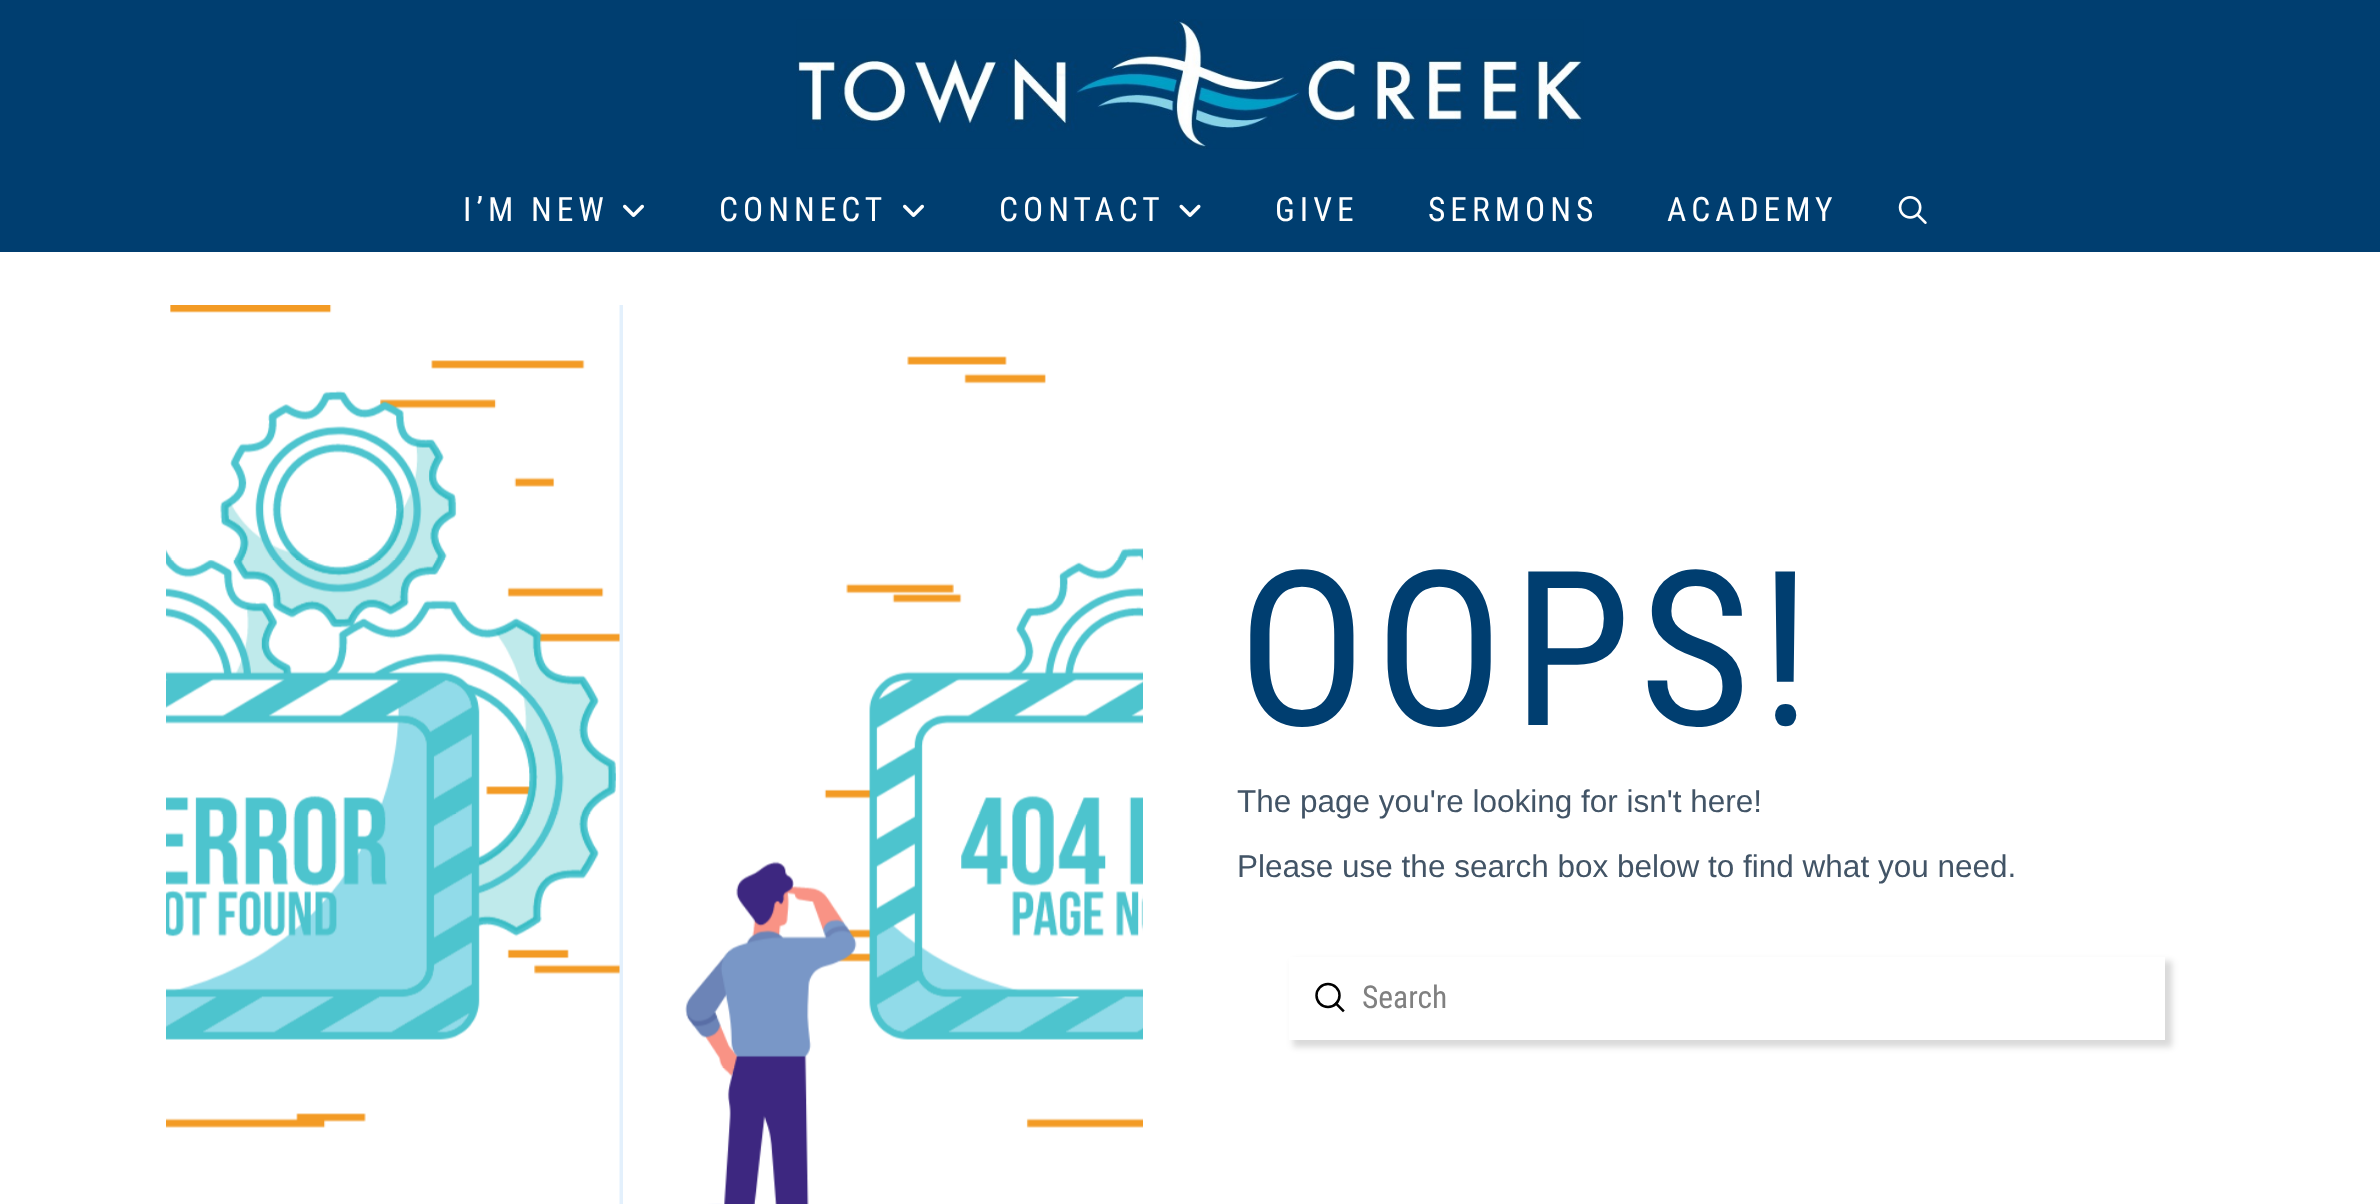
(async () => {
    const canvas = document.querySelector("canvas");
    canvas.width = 2380;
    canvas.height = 1204;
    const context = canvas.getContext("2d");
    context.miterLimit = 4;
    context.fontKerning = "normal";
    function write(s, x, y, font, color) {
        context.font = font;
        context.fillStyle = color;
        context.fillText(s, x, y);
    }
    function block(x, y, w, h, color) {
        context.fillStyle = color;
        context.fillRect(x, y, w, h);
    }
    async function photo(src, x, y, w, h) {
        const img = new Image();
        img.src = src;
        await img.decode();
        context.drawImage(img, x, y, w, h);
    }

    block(0, 0, 2380, 1204, "rgb(255, 255, 255)");
    block(0, 0, 2380, 252, "rgb(0, 62, 112)");
    await photo("media/1.png", 796, 19, 788, 130);
    context.letterSpacing = "5px";
    write("I’M NEW", 463, 221, "33.5px Roboto Condensed", "rgb(255, 255, 255)");
    await photo("media/2.png", 623, 204, 21, 13);
    write("CONNECT", 719, 221, "33.5px Roboto Condensed", "rgb(255, 255, 255)");
    await photo("media/2.png", 903, 204, 21, 13);
    write("CONTACT", 999, 221, "33.5px Roboto Condensed", "rgb(255, 255, 255)");
    await photo("media/3.png", 1179, 204, 22, 13);
    write("GIVE", 1275, 221, "33.5px Roboto Condensed", "rgb(255, 255, 255)");
    write("SERMONS", 1428, 221, "33.5px Roboto Condensed", "rgb(255, 255, 255)");
    write("ACADEMY", 1667, 221, "33.5px Roboto Condensed", "rgb(255, 255, 255)");
    await photo("media/4.png", 1898, 196, 29, 28);
    block(619, 305, 4, 899, "rgb(227, 240, 252)");
    await photo("media/5.png", 166, 305, 454, 899);
    await photo("media/6.png", 623, 305, 520, 899);
    context.letterSpacing = "7.5px";
    write("OOPS!", 1237, 725, "216px Roboto Condensed", "rgb(0, 62, 112)");
    context.letterSpacing = "0px";
    write("The page you're looking for isn't here!", 1237, 812, "31.5px Liberation Sans", "rgb(66, 84, 102)");
    write("Please use the search box below to find what you need.", 1237, 877, "31.5px Liberation Sans", "rgb(66, 84, 102)");
    context.fillStyle = "rgba(0, 0, 0, 0.15)";
    context.filter = "blur(3px)";
    context.beginPath();
    context.rect(1293, 961, 879, 86);
    context.fill();
    context.filter = "none";
    block(1289, 957, 876, 83, "rgb(255, 255, 255)");
    context.beginPath();
    context.arc(1328, 995.5, 11.5, 0, Math.PI * 2);
    context.strokeStyle = "rgb(0, 0, 0)";
    context.lineWidth = 2.5;
    context.stroke();
    context.beginPath();
    context.moveTo(1343, 1010.5);
    context.lineTo(1336, 1003.5);
    context.lineCap = "square";
    context.stroke();
    write("Search", 1362, 1008, "31.5px Roboto Condensed", "rgb(128, 128, 128)");
})();
